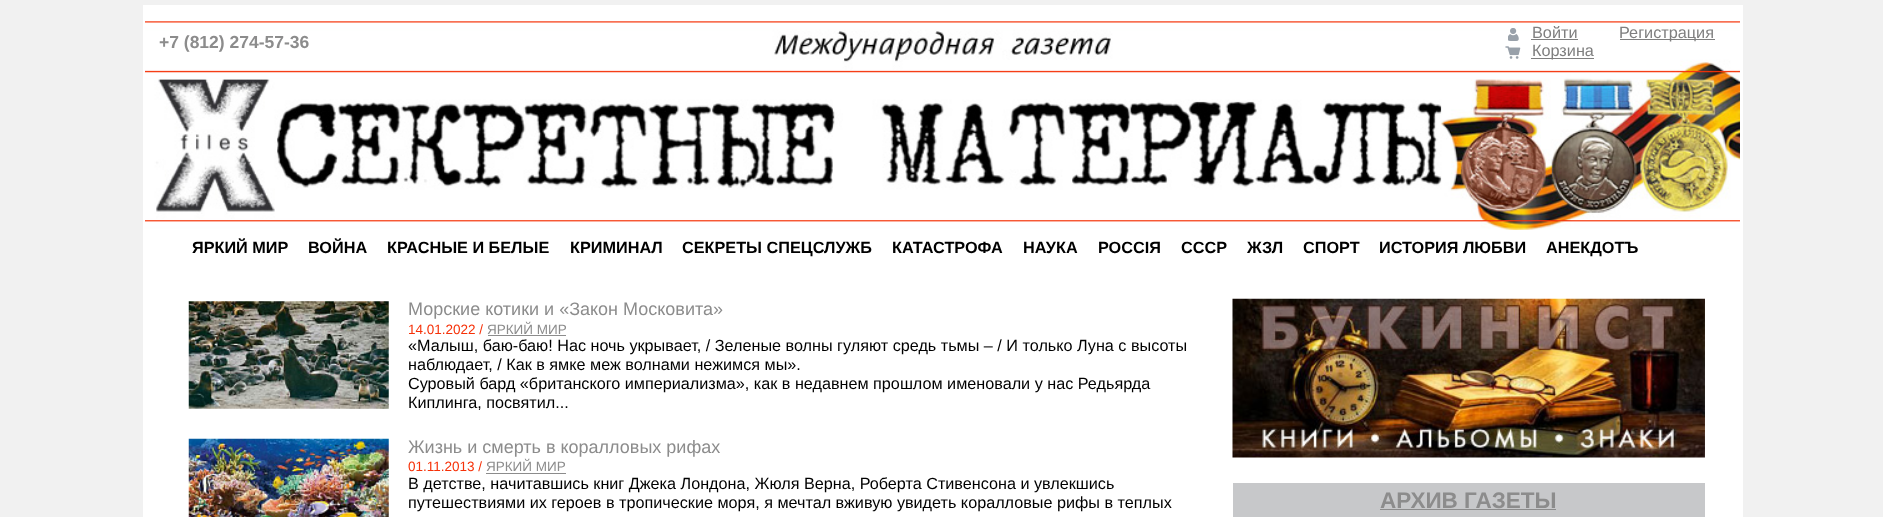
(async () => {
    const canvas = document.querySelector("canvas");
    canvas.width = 1883;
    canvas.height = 517;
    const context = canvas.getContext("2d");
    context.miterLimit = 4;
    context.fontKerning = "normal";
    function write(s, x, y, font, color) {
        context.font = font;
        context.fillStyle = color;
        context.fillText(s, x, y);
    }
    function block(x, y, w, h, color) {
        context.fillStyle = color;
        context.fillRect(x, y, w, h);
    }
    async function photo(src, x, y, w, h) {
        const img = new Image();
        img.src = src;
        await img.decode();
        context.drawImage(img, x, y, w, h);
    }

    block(0, 0, 1883, 517, "rgb(241, 241, 241)");
    block(143, 5, 1600, 512, "rgb(255, 255, 255)");
    await photo("media/1.png", 145, 21, 1595, 209);
    write("+7 (812) 274-57-36", 159, 48, "bold 17.5px Liberation Sans", "rgb(140, 140, 140)");
    await photo("media/2.png", 1508, 28, 11, 13);
    write("Войти", 1532, 38, "16.25px Liberation Sans", "rgb(127, 127, 127)");
    block(1531, 39, 47, 1, "rgb(127, 127, 127)");
    block(1620, 39, 95, 1, "rgb(127, 127, 127)");
    write("Регистрация", 1619, 38, "16.25px Liberation Sans", "rgb(127, 127, 127)");
    await photo("media/3.png", 1505, 46, 16, 13);
    block(1531, 58, 63, 1, "rgb(127, 127, 127)");
    write("Корзина", 1532, 56, "16.25px Liberation Sans", "rgb(127, 127, 127)");
    write("ЯРКИЙ МИР", 192, 253, "bold 16.25px Liberation Sans", "rgb(0, 0, 0)");
    write("ВОЙНА", 308, 253, "bold 16.25px Liberation Sans", "rgb(0, 0, 0)");
    write("КРАСНЫЕ И БЕЛЫЕ", 387, 253, "bold 16.25px Liberation Sans", "rgb(0, 0, 0)");
    write("КРИМИНАЛ", 570, 253, "bold 16.25px Liberation Sans", "rgb(0, 0, 0)");
    write("СЕКРЕТЫ СПЕЦСЛУЖБ", 682, 253, "bold 16.25px Liberation Sans", "rgb(0, 0, 0)");
    write("КАТАСТРОФА", 892, 253, "bold 16.25px Liberation Sans", "rgb(0, 0, 0)");
    write("НАУКА", 1023, 253, "bold 16.25px Liberation Sans", "rgb(0, 0, 0)");
    write("РОССIЯ", 1098, 253, "bold 16.25px Liberation Sans", "rgb(0, 0, 0)");
    write("СССР", 1181, 253, "bold 16.25px Liberation Sans", "rgb(0, 0, 0)");
    write("ЖЗЛ", 1247, 253, "bold 16.25px Liberation Sans", "rgb(0, 0, 0)");
    write("СПОРТ", 1303, 253, "bold 16.25px Liberation Sans", "rgb(0, 0, 0)");
    write("ИСТОРИЯ ЛЮБВИ", 1379, 253, "bold 16.25px Liberation Sans", "rgb(0, 0, 0)");
    write("АНЕКДОТЪ", 1546, 253, "bold 16.25px Liberation Sans", "rgb(0, 0, 0)");
    await photo("media/4.png", 188, 301, 201, 108);
    write("Морские котики и «Закон Московита»", 408, 315, "18px Liberation Sans", "rgb(140, 140, 140)");
    write("14.01.2022 /", 408, 334, "13.5px Liberation Sans", "rgb(246, 49, 8)");
    block(488, 335, 78, 1, "rgb(140, 140, 140)");
    write("ЯРКИЙ МИР", 487, 334, "13.5px Liberation Sans", "rgb(140, 140, 140)");
    write("«Малыш, баю-баю! Нас ночь укрывает, / Зеленые волны гуляют средь тьмы – / И только Луна с высоты", 408, 351, "16.2px Liberation Sans", "rgb(0, 0, 0)");
    write("наблюдает, / Как в ямке меж волнами нежимся мы».", 408, 370, "16.2px Liberation Sans", "rgb(0, 0, 0)");
    write("Суровый бард «британского империализма», как в недавнем прошлом именовали у нас Редьярда", 408, 389, "16.2px Liberation Sans", "rgb(0, 0, 0)");
    write("Киплинга, посвятил...", 408, 408, "16.2px Liberation Sans", "rgb(0, 0, 0)");
    await photo("media/5.png", 188, 438, 201, 79);
    write("Жизнь и смерть в коралловых рифах", 408, 453, "18px Liberation Sans", "rgb(140, 140, 140)");
    write("01.11.2013 /", 408, 471, "13.5px Liberation Sans", "rgb(246, 49, 8)");
    block(486, 473, 80, 1, "rgb(140, 140, 140)");
    write("ЯРКИЙ МИР", 486, 471, "13.5px Liberation Sans", "rgb(140, 140, 140)");
    write("В детстве, начитавшись книг Джека Лондона, Жюля Верна, Роберта Стивенсона и увлекшись", 408, 489, "16.2px Liberation Sans", "rgb(0, 0, 0)");
    write("путешествиями их героев в тропические моря, я мечтал вживую увидеть коралловые рифы в теплых", 408, 508, "16.2px Liberation Sans", "rgb(0, 0, 0)");
    await photo("media/6.png", 1232, 298, 473, 160);
    block(1233, 483, 472, 34, "rgb(199, 200, 202)");
    write("АРХИВ ГАЗЕТЫ", 1380, 508, "bold 22.5px Liberation Sans", "rgb(140, 140, 140)");
    block(1380, 509, 176, 1, "rgb(140, 140, 140)");
})();
